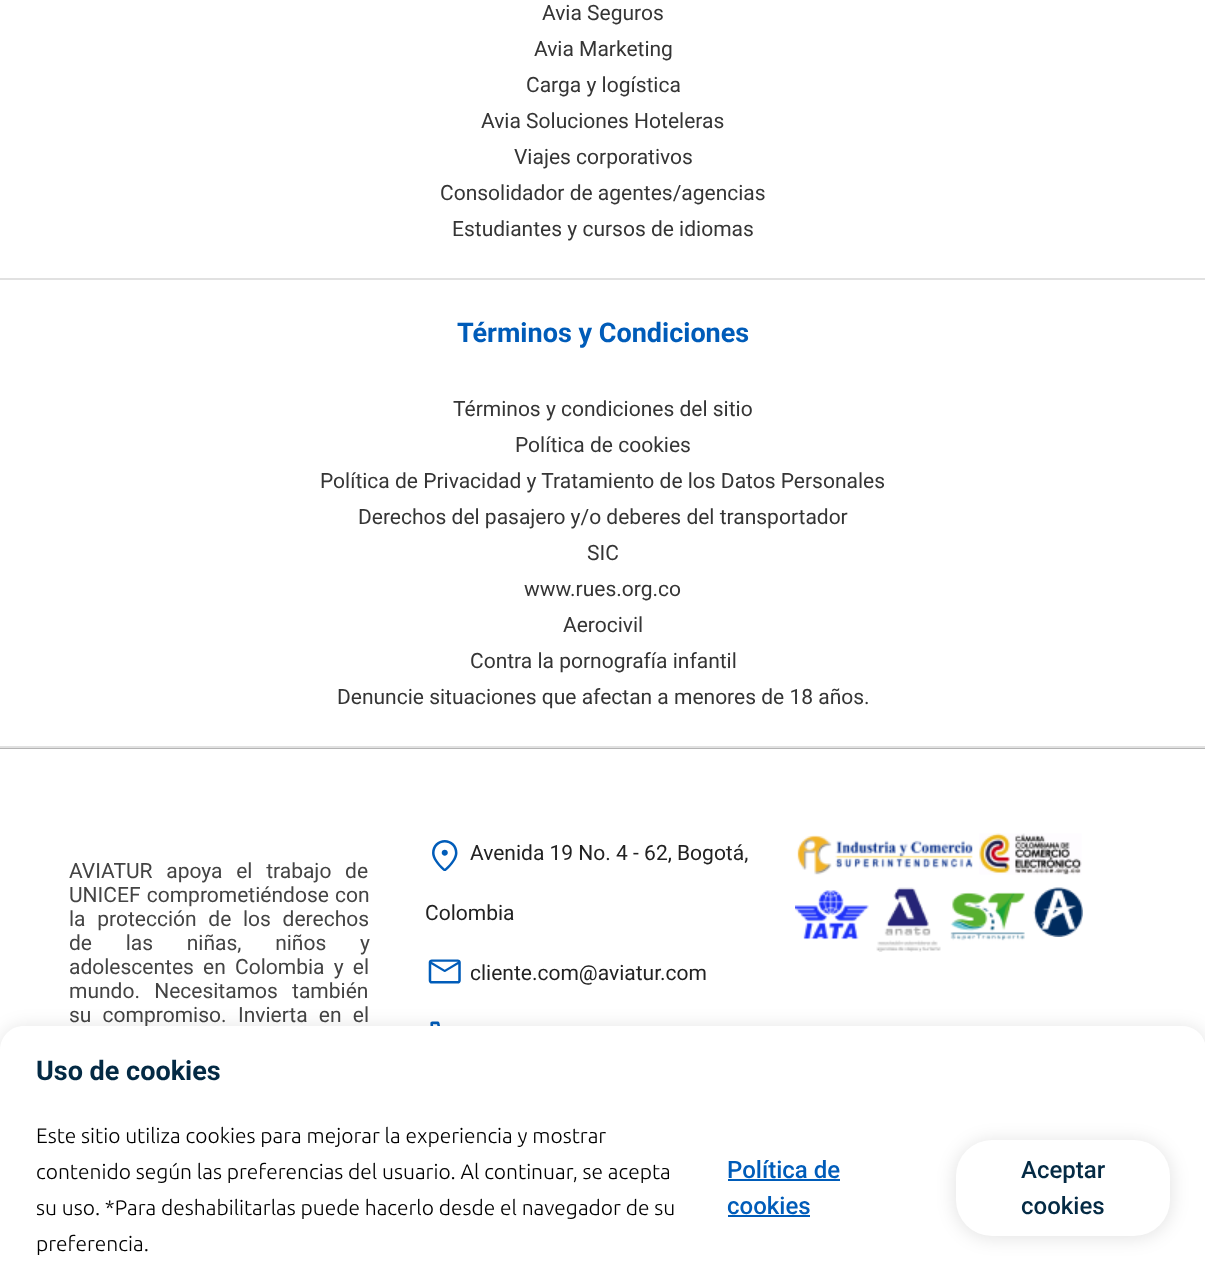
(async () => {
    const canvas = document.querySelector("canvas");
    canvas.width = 1205;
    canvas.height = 1284;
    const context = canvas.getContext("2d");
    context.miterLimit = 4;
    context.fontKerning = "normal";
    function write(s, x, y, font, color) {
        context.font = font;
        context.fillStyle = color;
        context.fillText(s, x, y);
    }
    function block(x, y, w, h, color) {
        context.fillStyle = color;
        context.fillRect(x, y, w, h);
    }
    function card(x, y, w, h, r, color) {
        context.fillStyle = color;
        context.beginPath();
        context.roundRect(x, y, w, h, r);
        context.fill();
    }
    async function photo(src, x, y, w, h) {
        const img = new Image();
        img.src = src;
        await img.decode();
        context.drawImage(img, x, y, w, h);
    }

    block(0, 0, 1205, 1284, "rgb(255, 255, 255)");
    block(0, 748, 1205, 1, "rgb(181, 181, 181)");
    block(0, 278, 1205, 2, "rgb(225, 225, 225)");
    write("Avia Seguros", 542, 20, "21px Roboto", "rgb(53, 53, 53)");
    write("Avia Marketing", 534, 56, "21px Roboto", "rgb(53, 53, 53)");
    write("Carga y logística", 526, 92, "21px Roboto", "rgb(53, 53, 53)");
    write("Avia Soluciones Hoteleras", 481, 128, "21px Roboto", "rgb(53, 53, 53)");
    write("Viajes corporativos", 514, 164, "21px Roboto", "rgb(53, 53, 53)");
    write("Consolidador de agentes/agencias", 440, 200, "21px Roboto", "rgb(53, 53, 53)");
    write("Estudiantes y cursos de idiomas", 452, 236, "21px Roboto", "rgb(53, 53, 53)");
    block(0, 746, 1205, 2, "rgb(225, 225, 225)");
    write("Términos y Condiciones", 457, 342, "bold 27px Roboto", "rgb(0, 92, 185)");
    write("Términos y condiciones del sitio", 453, 416, "21px Roboto", "rgb(53, 53, 53)");
    write("Política de cookies", 515, 452, "21px Roboto", "rgb(53, 53, 53)");
    write("Política de Privacidad y Tratamiento de los Datos Personales", 320, 488, "21px Roboto", "rgb(53, 53, 53)");
    write("Derechos del pasajero y/o deberes del transportador", 358, 524, "21px Roboto", "rgb(53, 53, 53)");
    write("SIC", 587, 560, "21px Roboto", "rgb(53, 53, 53)");
    write("www.rues.org.co", 524, 596, "21px Roboto", "rgb(53, 53, 53)");
    write("Aerocivil", 563, 632, "21px Roboto", "rgb(53, 53, 53)");
    write("Contra la pornografía infantil", 470, 668, "21px Roboto", "rgb(53, 53, 53)");
    write("Denuncie situaciones que afectan a menores de 18 años.", 337, 704, "21px Roboto", "rgb(53, 53, 53)");
    context.wordSpacing = "8.5px";
    write("AVIATUR apoya el trabajo de", 69, 878, "21px Roboto", "rgb(68, 68, 68)");
    context.wordSpacing = "1px";
    write("UNICEF comprometiéndose con", 69, 902, "21px Roboto", "rgb(68, 68, 68)");
    context.wordSpacing = "6.5px";
    write("la protección de los derechos", 69, 926, "21px Roboto", "rgb(68, 68, 68)");
    context.wordSpacing = "28.5px";
    write("de las niñas, niños y", 69, 950, "21px Roboto", "rgb(68, 68, 68)");
    context.wordSpacing = "4px";
    write("adolescentes en Colombia y el", 69, 974, "21px Roboto", "rgb(68, 68, 68)");
    context.wordSpacing = "9px";
    write("mundo. Necesitamos también", 69, 998, "21px Roboto", "rgb(68, 68, 68)");
    context.wordSpacing = "6px";
    write("su compromiso.", 69, 1022, "21px Roboto", "rgb(68, 68, 68)");
    write("Invierta en el", 238, 1022, "21px Roboto", "rgb(68, 68, 68)");
    await photo("media/1.png", 432, 840, 26, 31);
    context.wordSpacing = "0px";
    write("Avenida 19 No. 4 - 62, Bogotá,", 470, 860, "21px Roboto", "rgb(34, 34, 34)");
    write("Colombia", 425, 920, "21px Roboto", "rgb(34, 34, 34)");
    await photo("media/2.png", 428, 959, 33, 25);
    write("cliente.com@aviatur.com", 470, 980, "21px Roboto", "rgb(34, 34, 34)");
    await photo("media/3.png", 430, 1021, 10, 5);
    await photo("media/4.png", 797, 835, 176, 40);
    await photo("media/5.png", 979, 833, 103, 42);
    await photo("media/6.png", 795, 890, 74, 50);
    await photo("media/7.png", 876, 887, 65, 65);
    await photo("media/8.png", 950, 892, 75, 49);
    await photo("media/9.png", 1033, 887, 50, 50);
    context.fillStyle = "rgba(0, 0, 0, 0.1)";
    context.filter = "blur(9px)";
    context.beginPath();
    context.roundRect(-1, 1026, 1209, 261, 26);
    context.fill();
    context.filter = "none";
    context.fillStyle = "rgb(255, 255, 255)";
    context.beginPath();
    context.moveTo(24, 1026);
    context.lineTo(1182, 1026);
    context.bezierCurveTo(1195.5, 1026, 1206, 1036.5, 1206, 1050);
    context.lineTo(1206, 1284);
    context.lineTo(0, 1284);
    context.lineTo(0, 1050);
    context.bezierCurveTo(0, 1036.5, 10.5, 1026, 24, 1026);
    context.closePath();
    context.fill();
    write("Uso de cookies", 36, 1080, "bold 27px Roboto", "rgb(4, 42, 68)");
    write("Este sitio utiliza cookies para mejorar la experiencia y mostrar", 36, 1143, "300 21px Ubuntu", "rgb(0, 0, 0)");
    write("contenido según las preferencias del usuario. Al continuar, se acepta", 36, 1179, "300 21px Ubuntu", "rgb(0, 0, 0)");
    write("su uso. *Para deshabilitarlas puede hacerlo desde el navegador de su", 36, 1215, "300 21px Ubuntu", "rgb(0, 0, 0)");
    write("preferencia.", 36, 1251, "300 21px Ubuntu", "rgb(0, 0, 0)");
    write("Política de", 727, 1178, "500 24px Roboto", "rgb(0, 92, 185)");
    block(728, 1179, 112, 2, "rgb(0, 92, 185)");
    write("cookies", 727, 1214, "500 24px Roboto", "rgb(0, 92, 185)");
    block(728, 1215, 82, 2, "rgb(0, 92, 185)");
    context.fillStyle = "rgba(0, 0, 0, 0.1)";
    context.filter = "blur(9px)";
    context.beginPath();
    context.roundRect(954, 1140, 218, 99, 38);
    context.fill();
    context.filter = "none";
    card(956, 1140, 214, 96, 36, "rgb(255, 255, 255)");
    write("Aceptar", 1021, 1178, "500 24px Roboto", "rgb(4, 42, 68)");
    write("cookies", 1021, 1214, "500 24px Roboto", "rgb(4, 42, 68)");
})();
